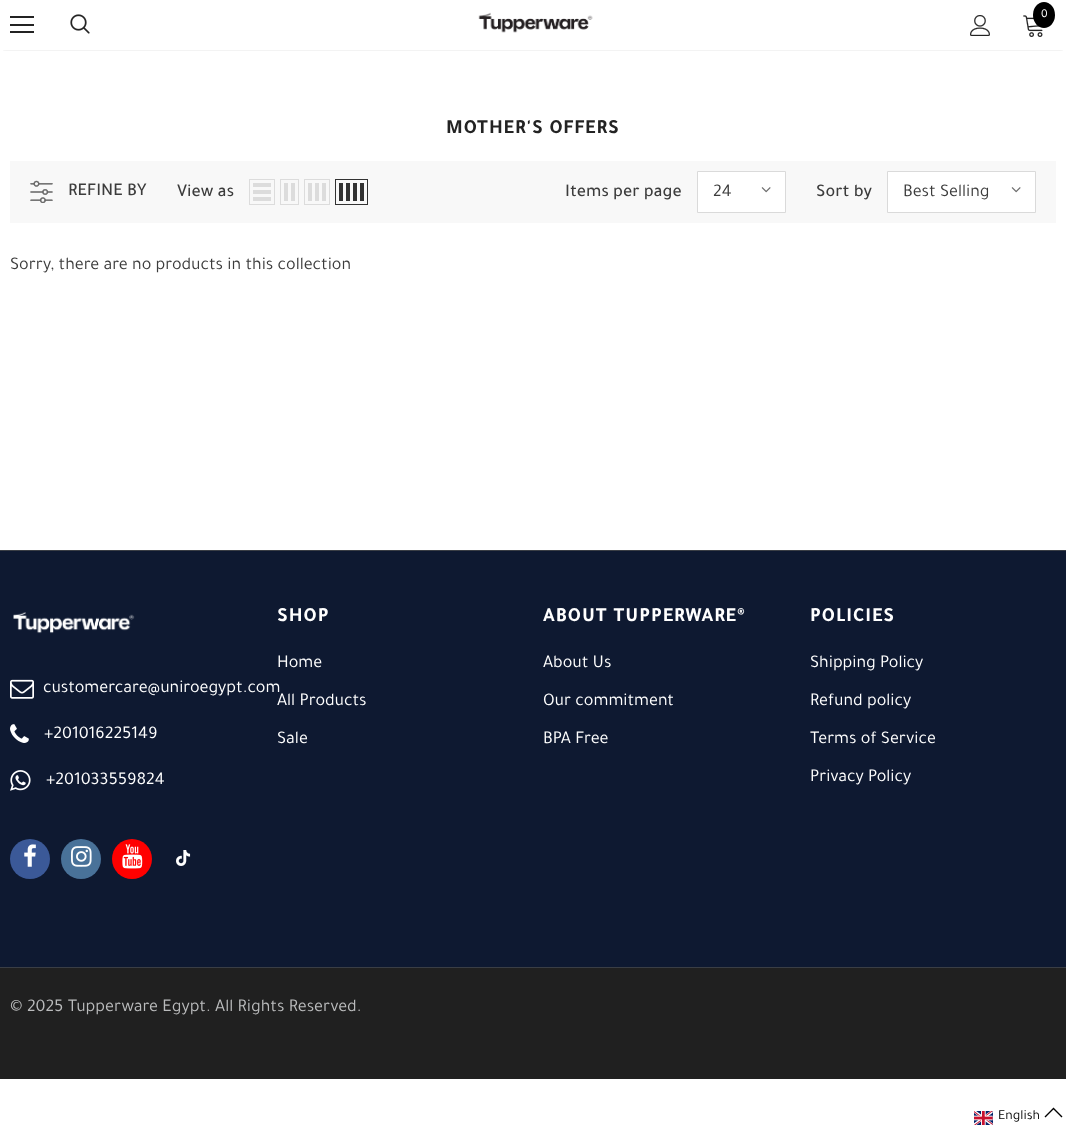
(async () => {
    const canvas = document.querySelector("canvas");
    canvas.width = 1066;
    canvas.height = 1131;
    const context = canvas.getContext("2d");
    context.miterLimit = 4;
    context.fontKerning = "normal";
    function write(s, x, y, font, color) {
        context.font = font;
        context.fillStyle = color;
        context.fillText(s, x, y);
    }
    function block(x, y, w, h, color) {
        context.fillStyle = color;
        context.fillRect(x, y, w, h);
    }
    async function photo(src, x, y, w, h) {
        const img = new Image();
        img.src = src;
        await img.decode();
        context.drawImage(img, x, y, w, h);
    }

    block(0, 0, 1066, 1131, "rgb(255, 255, 255)");
    context.save();
    context.beginPath();
    context.rect(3, 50, 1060, 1);
    context.clip();
    context.fillStyle = "rgba(0, 0, 0, 0.12)";
    context.filter = "blur(1.5px)";
    context.beginPath();
    context.rect(3, 6, 1060, 44);
    context.fill();
    context.filter = "none";
    context.restore();
    block(10, 16, 24, 2, "rgb(35, 35, 35)");
    block(10, 24, 24, 2, "rgb(35, 35, 35)");
    block(10, 31, 24, 2, "rgb(35, 35, 35)");
    await photo("media/1.png", 70, 14, 20, 20);
    await photo("media/2.png", 478, 12, 115, 21);
    await photo("media/3.png", 1023, 15, 20, 22);
    context.fillStyle = "rgb(0, 0, 0)";
    context.beginPath();
    context.ellipse(1044, 15, 11, 13, 0, 0, Math.PI * 2);
    context.fill();
    write("0", 1041, 17, "12px Tajawal", "rgb(255, 255, 255)");
    await photo("media/4.png", 970, 15, 20, 21);
    context.letterSpacing = "1px";
    write("MOTHER'S OFFERS", 446, 133, "bold 20px Tajawal", "rgb(35, 35, 35)");
    block(10, 161, 1046, 62, "rgb(248, 248, 248)");
    await photo("media/5.png", 30, 180, 23, 23);
    context.letterSpacing = "0px";
    write("REFINE BY", 68, 195, "500 18px Tajawal", "rgb(60, 60, 60)");
    write("View as", 177, 196, "500 18px Tajawal", "rgb(60, 60, 60)");
    context.strokeStyle = "rgb(220, 220, 220)";
    context.strokeRect(249.5, 179.5, 25, 25);
    block(253, 197, 18, 4, "rgb(220, 220, 220)");
    block(253, 190, 18, 4, "rgb(220, 220, 220)");
    block(253, 183, 18, 4, "rgb(220, 220, 220)");
    context.strokeRect(280.5, 179.5, 18, 25);
    block(291, 183, 4, 18, "rgb(220, 220, 220)");
    block(284, 183, 4, 18, "rgb(220, 220, 220)");
    context.strokeRect(304.5, 179.5, 25, 25);
    block(322, 183, 4, 18, "rgb(220, 220, 220)");
    block(315, 183, 4, 18, "rgb(220, 220, 220)");
    block(308, 183, 4, 18, "rgb(220, 220, 220)");
    context.strokeStyle = "rgb(50, 50, 50)";
    context.strokeRect(335.5, 179.5, 32, 25);
    block(360, 183, 4, 18, "rgb(50, 50, 50)");
    block(353, 183, 4, 18, "rgb(50, 50, 50)");
    block(346, 183, 4, 18, "rgb(50, 50, 50)");
    block(339, 183, 4, 18, "rgb(50, 50, 50)");
    write("Items per page", 565, 196, "500 18px Tajawal", "rgb(60, 60, 60)");
    context.fillStyle = "rgb(255, 255, 255)";
    context.beginPath();
    context.rect(697.5, 171.5, 88, 41);
    context.fill();
    context.strokeStyle = "rgb(218, 218, 218)";
    context.stroke();
    write("24", 713, 196, "18px Tajawal", "rgb(60, 60, 60)");
    await photo("media/6.png", 761, 187, 10, 6);
    write("Sort by", 816, 196, "500 18px Tajawal", "rgb(60, 60, 60)");
    context.fillStyle = "rgb(255, 255, 255)";
    context.beginPath();
    context.rect(887.5, 171.5, 148, 41);
    context.fill();
    context.stroke();
    write("Best Selling", 903, 196, "18px Tajawal", "rgb(60, 60, 60)");
    await photo("media/6.png", 1011, 187, 10, 6);
    write("Sorry, there are no products in this collection", 10, 269, "18px Tajawal", "rgb(60, 60, 60)");
    block(0, 551, 1066, 416, "rgb(14, 25, 49)");
    block(0, 550, 1066, 1, "rgb(58, 62, 69)");
    await photo("media/7.png", 13, 612, 122, 22);
    await photo("media/8.png", 10, 679, 24, 20);
    write("customercare@uniroegypt.com", 43, 692, "18px Tajawal", "rgb(255, 255, 255)");
    await photo("media/9.png", 10, 724, 19, 19);
    write("+201016225149", 44, 738, "18px Tajawal", "rgb(255, 255, 255)");
    await photo("media/10.png", 10, 770, 21, 21);
    write("+201033559824", 46, 784, "18px Tajawal", "rgb(255, 255, 255)");
    context.fillStyle = "rgb(59, 89, 152)";
    context.beginPath();
    context.arc(30, 859, 20, 0, Math.PI * 2);
    context.fill();
    await photo("media/11.png", 24, 844, 12, 23);
    context.fillStyle = "rgb(73, 114, 153)";
    context.beginPath();
    context.arc(81, 859, 20, 0, Math.PI * 2);
    context.fill();
    await photo("media/12.png", 71, 846, 21, 21);
    context.fillStyle = "rgb(255, 0, 0)";
    context.beginPath();
    context.arc(132, 859, 20, 0, Math.PI * 2);
    context.fill();
    await photo("media/13.png", 122, 844, 21, 25);
    await photo("media/14.png", 176, 850, 15, 16);
    context.letterSpacing = "1px";
    write("SHOP", 277, 621, "bold 20px Tajawal", "rgb(255, 255, 255)");
    context.letterSpacing = "0px";
    write("Home", 277, 667, "18px Tajawal", "rgb(255, 255, 255)");
    write("All Products", 277, 705, "18px Tajawal", "rgb(255, 255, 255)");
    write("Sale", 277, 743, "18px Tajawal", "rgb(255, 255, 255)");
    context.letterSpacing = "1px";
    write("ABOUT TUPPERWARE®", 543, 621, "bold 20px Tajawal", "rgb(255, 255, 255)");
    context.letterSpacing = "0px";
    write("About Us", 543, 667, "18px Tajawal", "rgb(255, 255, 255)");
    write("Our commitment", 543, 705, "18px Tajawal", "rgb(255, 255, 255)");
    write("BPA Free", 543, 743, "18px Tajawal", "rgb(255, 255, 255)");
    context.letterSpacing = "1px";
    write("POLICIES", 810, 621, "bold 20px Tajawal", "rgb(255, 255, 255)");
    context.letterSpacing = "0px";
    write("Shipping Policy", 810, 667, "18px Tajawal", "rgb(255, 255, 255)");
    write("Refund policy", 810, 705, "18px Tajawal", "rgb(255, 255, 255)");
    write("Terms of Service", 810, 743, "18px Tajawal", "rgb(255, 255, 255)");
    write("Privacy Policy", 810, 781, "18px Tajawal", "rgb(255, 255, 255)");
    block(0, 968, 1066, 111, "rgb(32, 32, 32)");
    block(0, 967, 1066, 1, "rgb(58, 62, 69)");
    write("© 2025 Tupperware Egypt. All Rights Reserved.", 10, 1011, "18px Tajawal", "rgb(186, 187, 188)");
    await photo("media/15.png", 974, 1111, 19, 14);
    write("English", 998, 1119, "14px Tajawal", "rgb(0, 0, 0)");
    context.beginPath();
    context.moveTo(1062, 1117);
    context.lineTo(1053.5, 1108.5);
    context.lineTo(1045, 1117);
    context.strokeStyle = "rgb(0, 0, 0)";
    context.lineWidth = 1.4;
    context.stroke();
})();
